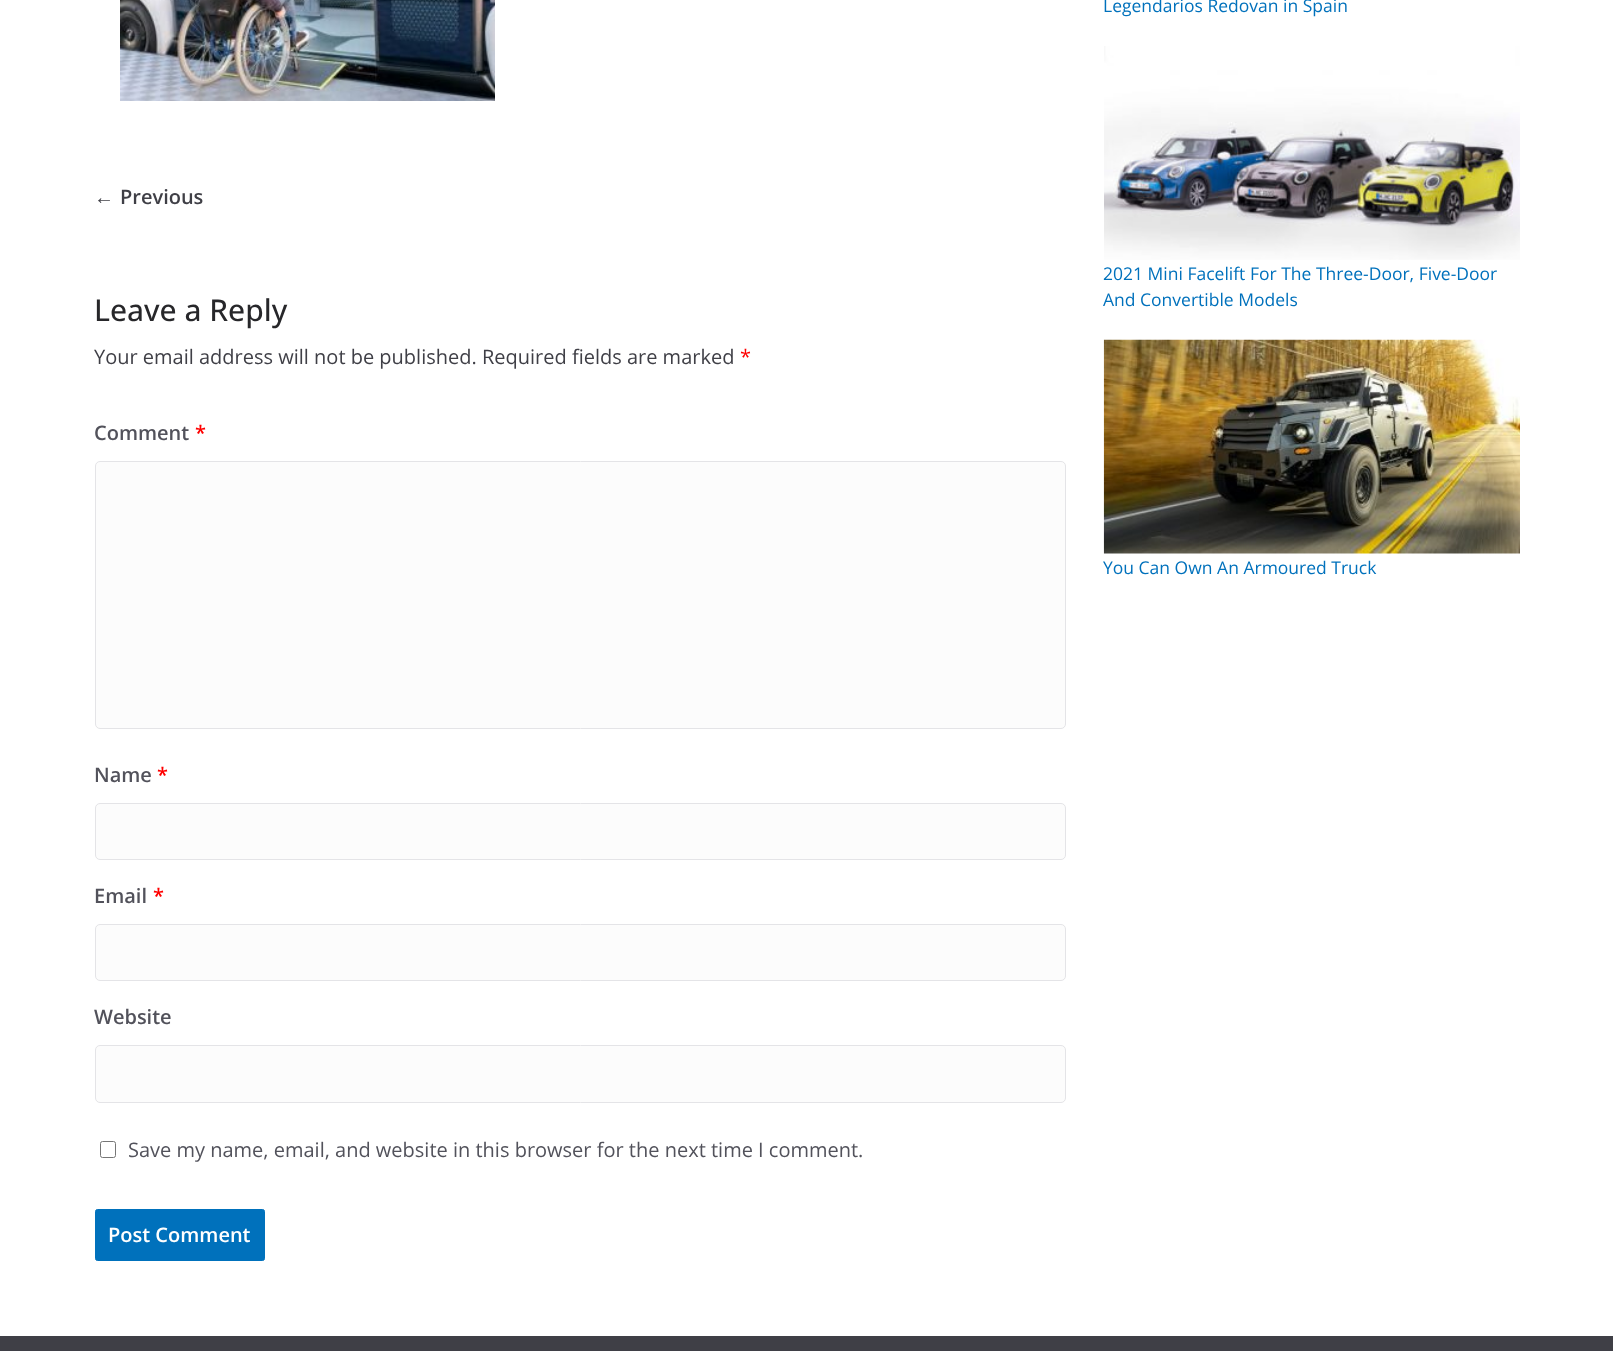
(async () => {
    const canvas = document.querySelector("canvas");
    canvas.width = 1613;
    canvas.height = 1351;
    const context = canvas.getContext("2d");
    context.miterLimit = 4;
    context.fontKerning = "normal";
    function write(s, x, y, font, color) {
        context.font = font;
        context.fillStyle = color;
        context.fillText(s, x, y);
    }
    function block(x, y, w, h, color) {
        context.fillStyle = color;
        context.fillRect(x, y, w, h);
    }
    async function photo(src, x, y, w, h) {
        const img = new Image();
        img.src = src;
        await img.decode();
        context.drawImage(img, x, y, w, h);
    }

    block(0, 0, 1613, 1351, "rgb(255, 255, 255)");
    await photo("media/1.png", 120, 0, 375, 101);
    write("←", 94, 204, "bold 20px Liberation Serif", "rgb(63, 63, 70)");
    write("Previous", 120, 204, "600 20px Open Sans", "rgb(63, 63, 70)");
    write("Leave a Reply", 94, 321, "500 30px Open Sans", "rgb(39, 39, 42)");
    write("Your email address will not be published. Required fields are marked", 94, 364, "20px Open Sans", "rgb(63, 63, 70)");
    write("*", 740, 364, "20px Open Sans", "rgb(255, 0, 0)");
    write("Comment", 94, 440, "600 20px Open Sans", "rgb(82, 82, 91)");
    write("*", 195, 440, "600 20px Open Sans", "rgb(255, 0, 0)");
    context.fillStyle = "rgb(252, 252, 252)";
    context.beginPath();
    context.roundRect(95.5, 461.5, 970, 267, 4.5);
    context.fill();
    context.strokeStyle = "rgb(228, 228, 231)";
    context.stroke();
    write("Name", 94, 782, "600 20px Open Sans", "rgb(82, 82, 91)");
    write("*", 157, 782, "600 20px Open Sans", "rgb(255, 0, 0)");
    context.fillStyle = "rgb(252, 252, 252)";
    context.beginPath();
    context.roundRect(95.5, 803.5, 970, 56, 4.5);
    context.fill();
    context.stroke();
    write("Email", 94, 903, "600 20px Open Sans", "rgb(82, 82, 91)");
    write("*", 153, 903, "600 20px Open Sans", "rgb(255, 0, 0)");
    context.fillStyle = "rgb(252, 252, 252)";
    context.beginPath();
    context.roundRect(95.5, 924.5, 970, 56, 4.5);
    context.fill();
    context.stroke();
    write("Website", 94, 1024, "600 20px Open Sans", "rgb(82, 82, 91)");
    context.fillStyle = "rgb(252, 252, 252)";
    context.beginPath();
    context.roundRect(95.5, 1045.5, 970, 57, 4.5);
    context.fill();
    context.stroke();
    context.beginPath();
    context.roundRect(100.5, 1141.5, 15, 16, 2);
    context.strokeStyle = "rgb(118, 118, 118)";
    context.stroke();
    write("Save my name, email, and website in this browser for the next time I comment.", 128, 1157, "20px Open Sans", "rgb(82, 82, 91)");
    context.fillStyle = "rgb(0, 113, 188)";
    context.beginPath();
    context.roundRect(95.5, 1209.5, 169, 51, 2);
    context.fill();
    context.strokeStyle = "rgb(0, 113, 188)";
    context.stroke();
    write("Post Comment", 108, 1242, "600 20px Open Sans", "rgb(255, 255, 255)");
    write("Legendarios Redovan in Spain", 1103, 12, "17.5px Open Sans", "rgb(0, 113, 188)");
    await photo("media/2.png", 1104, 46, 416, 214);
    write("2021 Mini Facelift For The Three-Door, Five-Door", 1103, 280, "17.5px Open Sans", "rgb(0, 113, 188)");
    write("And Convertible Models", 1103, 306, "17.5px Open Sans", "rgb(0, 113, 188)");
    await photo("media/3.png", 1103, 339, 417, 215);
    write("You Can Own An Armoured Truck", 1103, 574, "17.5px Open Sans", "rgb(0, 113, 188)");
    block(0, 1336, 1613, 15, "rgb(63, 63, 70)");
})();
